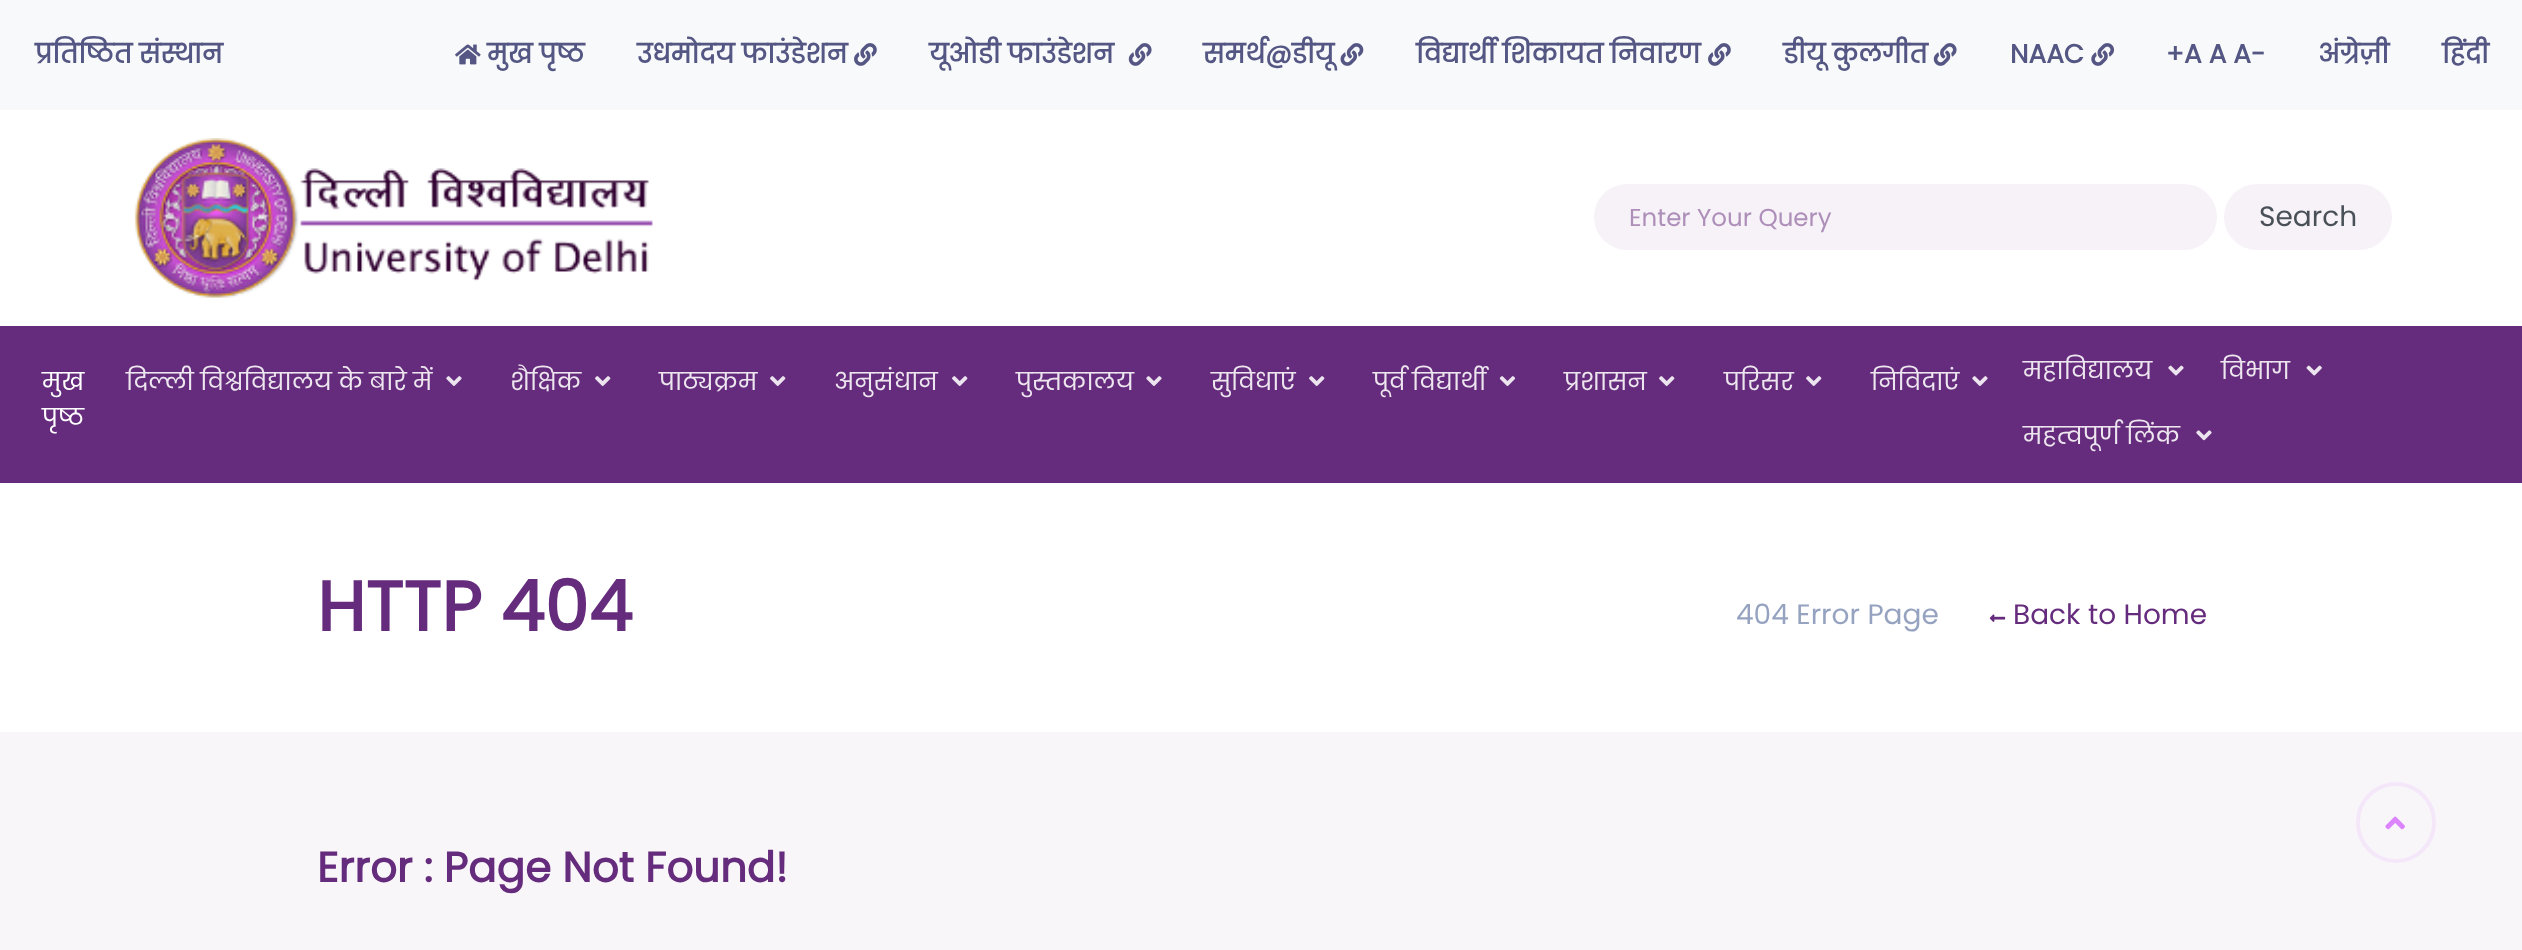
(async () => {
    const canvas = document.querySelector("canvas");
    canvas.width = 2522;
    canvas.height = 950;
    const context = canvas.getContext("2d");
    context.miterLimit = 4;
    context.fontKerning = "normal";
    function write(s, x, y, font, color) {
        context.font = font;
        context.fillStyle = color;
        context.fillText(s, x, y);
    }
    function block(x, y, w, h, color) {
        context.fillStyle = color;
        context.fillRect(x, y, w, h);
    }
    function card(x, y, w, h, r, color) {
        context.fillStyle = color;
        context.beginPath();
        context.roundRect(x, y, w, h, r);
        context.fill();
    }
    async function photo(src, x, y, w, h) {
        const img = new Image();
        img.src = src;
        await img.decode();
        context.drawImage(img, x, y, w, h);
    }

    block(0, 0, 2522, 950, "rgb(255, 255, 255)");
    block(0, 0, 2522, 110, "rgb(248, 249, 250)");
    write("प्रतिष्ठित संस्थान", 35, 63, "bold 26.25px Poppins", "rgb(84, 86, 131)");
    write("मुख पृष्ठ", 487, 63, "bold 26.25px Poppins", "rgb(84, 86, 131)");
    await photo("media/1.png", 455, 44, 26, 21);
    write("उधमोदय फाउंडेशन", 637, 63, "bold 26.25px Poppins", "rgb(84, 86, 131)");
    await photo("media/2.png", 854, 43, 23, 23);
    write("यूओडी फाउंडेशन", 929, 63, "bold 26.25px Poppins", "rgb(84, 86, 131)");
    await photo("media/3.png", 1128, 43, 24, 23);
    write("समर्थ@डीयू", 1203, 63, "bold 26.25px Poppins", "rgb(84, 86, 131)");
    await photo("media/4.png", 1340, 43, 24, 23);
    write("विद्यार्थी शिकायत निवारण", 1416, 63, "bold 26.25px Poppins", "rgb(84, 86, 131)");
    await photo("media/2.png", 1708, 43, 23, 23);
    write("डीयू कुलगीत", 1783, 63, "bold 26.25px Poppins", "rgb(84, 86, 131)");
    await photo("media/3.png", 1933, 43, 24, 23);
    write("NAAC", 2010, 63, "bold 26.25px Poppins", "rgb(84, 86, 131)");
    await photo("media/5.png", 2091, 43, 23, 23);
    write("+A A A-", 2166, 63, "bold 26.25px Poppins", "rgb(84, 86, 131)");
    write("अंग्रेज़ी", 2318, 63, "bold 26.25px Poppins", "rgb(84, 86, 131)");
    write("हिंदी", 2442, 63, "bold 26.25px Poppins", "rgb(84, 86, 131)");
    await photo("media/6.png", 134, 138, 519, 160);
    card(1594, 184, 623, 66, 33, "rgb(246, 242, 247)");
    write("Enter Your Query", 1629, 226, "24.5px Poppins", "rgb(174, 143, 186)");
    card(2224, 184, 168, 66, 33, "rgb(246, 242, 247)");
    write("Search", 2259, 226, "28px Poppins", "rgb(73, 80, 87)");
    block(0, 326, 2522, 157, "rgb(101, 43, 124)");
    write("मुख", 42, 390, "24.5px Poppins", "rgb(255, 255, 255)");
    write("पृष्ठ", 42, 426, "24.5px Poppins", "rgb(255, 255, 255)");
    write("दिल्ली विश्वविद्यालय के बारे में", 126, 390, "24.5px Poppins", "rgb(237, 230, 239)");
    await photo("media/7.png", 446, 376, 16, 10);
    write("शैक्षिक", 510, 390, "24.5px Poppins", "rgb(237, 230, 239)");
    await photo("media/8.png", 595, 376, 16, 10);
    write("पाठ्यक्रम", 659, 390, "24.5px Poppins", "rgb(237, 230, 239)");
    await photo("media/8.png", 770, 376, 16, 10);
    write("अनुसंधान", 834, 390, "24.5px Poppins", "rgb(237, 230, 239)");
    await photo("media/8.png", 952, 376, 16, 10);
    write("पुस्तकालय", 1016, 390, "24.5px Poppins", "rgb(237, 230, 239)");
    await photo("media/7.png", 1146, 376, 16, 10);
    write("सुविधाएं", 1211, 390, "24.5px Poppins", "rgb(237, 230, 239)");
    await photo("media/8.png", 1309, 376, 16, 10);
    write("पूर्व विद्यार्थी", 1373, 390, "24.5px Poppins", "rgb(237, 230, 239)");
    await photo("media/9.png", 1499, 376, 17, 10);
    write("प्रशासन", 1564, 390, "24.5px Poppins", "rgb(237, 230, 239)");
    await photo("media/8.png", 1659, 376, 16, 10);
    write("परिसर", 1724, 390, "24.5px Poppins", "rgb(237, 230, 239)");
    await photo("media/8.png", 1806, 376, 16, 10);
    write("निविदाएं", 1871, 390, "24.5px Poppins", "rgb(237, 230, 239)");
    await photo("media/7.png", 1972, 376, 16, 10);
    write("महाविद्यालय", 2023, 379, "24.5px Poppins", "rgb(237, 230, 239)");
    await photo("media/10.png", 2168, 365, 16, 11);
    write("विभाग", 2221, 379, "24.5px Poppins", "rgb(237, 230, 239)");
    await photo("media/11.png", 2306, 365, 16, 11);
    write("महत्वपूर्ण लिंक", 2023, 444, "24.5px Poppins", "rgb(237, 230, 239)");
    await photo("media/12.png", 2196, 430, 16, 11);
    write("HTTP 404", 317, 631, "bold 70px Poppins", "rgb(101, 43, 124)");
    write("404 Error Page", 1736, 624, "28px Poppins", "rgb(150, 163, 192)");
    await photo("media/13.png", 1989, 614, 17, 8);
    write("Back to Home", 2013, 624, "28px Poppins", "rgb(101, 43, 124)");
    block(0, 732, 2522, 218, "rgb(249, 246, 249)");
    context.beginPath();
    context.roundRect(2358, 784, 76, 77, 38);
    context.strokeStyle = "rgb(245, 231, 250)";
    context.lineWidth = 4;
    context.stroke();
    await photo("media/14.png", 2385, 816, 20, 14);
    write("Error : Page Not Found!", 317, 882, "bold 42px Poppins", "rgb(101, 43, 124)");
})();
